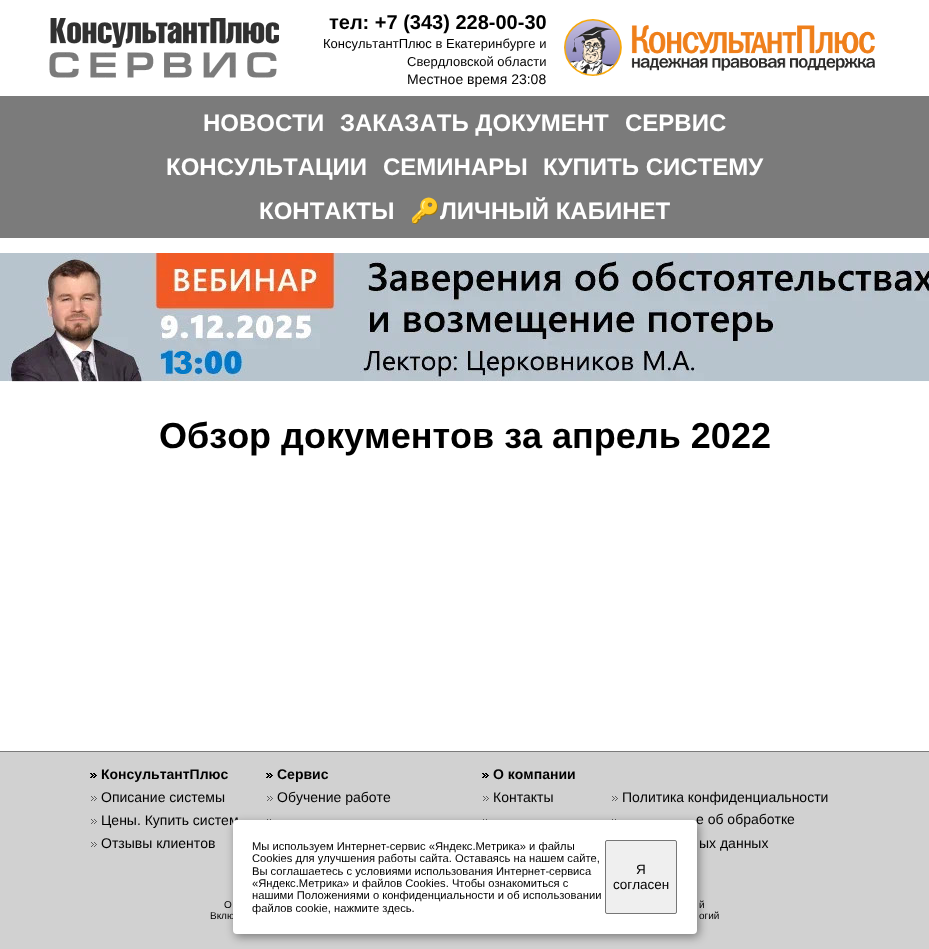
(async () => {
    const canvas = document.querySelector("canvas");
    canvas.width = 929;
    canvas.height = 949;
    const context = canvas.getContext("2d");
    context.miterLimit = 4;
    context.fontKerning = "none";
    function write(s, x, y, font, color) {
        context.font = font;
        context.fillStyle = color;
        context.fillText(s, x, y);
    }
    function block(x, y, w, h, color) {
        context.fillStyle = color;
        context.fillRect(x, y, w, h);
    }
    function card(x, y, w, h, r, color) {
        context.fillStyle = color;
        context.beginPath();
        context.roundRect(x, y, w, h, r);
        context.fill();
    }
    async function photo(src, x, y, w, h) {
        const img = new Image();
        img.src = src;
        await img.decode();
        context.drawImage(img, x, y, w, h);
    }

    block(0, 0, 929, 949, "rgb(255, 255, 255)");
    await photo("media/1.png", 49, 18, 230, 60);
    write("тел: +7 (343) 228-00-30", 329, 29, "bold 20px Liberation Sans", "rgb(0, 0, 0)");
    write("КонсультантПлюс в Екатеринбурге и", 323, 48, "13px Liberation Sans", "rgb(0, 0, 0)");
    write("Свердловской области", 407, 66, "13px Liberation Sans", "rgb(0, 0, 0)");
    write("Местное время 23:08", 407, 84, "14px Liberation Sans", "rgb(0, 0, 0)");
    await photo("media/2.png", 564, 19, 311, 57);
    block(0, 96, 929, 142, "rgb(123, 123, 123)");
    write("НОВОСТИ", 203, 131, "bold 24px Liberation Sans", "rgb(255, 255, 255)");
    write("ЗАКАЗАТЬ ДОКУМЕНТ", 340, 131, "bold 24px Liberation Sans", "rgb(255, 255, 255)");
    write("СЕРВИС", 625, 131, "bold 24px Liberation Sans", "rgb(255, 255, 255)");
    write("КОНСУЛЬТАЦИИ", 166, 175, "bold 24px Liberation Sans", "rgb(255, 255, 255)");
    write("СЕМИНАРЫ", 383, 175, "bold 24px Liberation Sans", "rgb(255, 255, 255)");
    write("КУПИТЬ СИСТЕМУ", 543, 175, "bold 24px Liberation Sans", "rgb(255, 255, 255)");
    write("КОНТАКТЫ", 259, 219, "bold 24px Liberation Sans", "rgb(255, 255, 255)");
    write("🔑", 410, 219, "bold 24px Noto Color Emoji", "rgb(255, 255, 255)");
    write("ЛИЧНЫЙ КАБИНЕТ", 440, 219, "bold 24px Liberation Sans", "rgb(255, 255, 255)");
    await photo("media/3.png", 0, 253, 929, 129);
    write("Обзор документов за апрель 2022", 159, 448, "bold 36px Liberation Sans", "rgb(0, 0, 0)");
    block(0, 752, 929, 197, "rgb(209, 209, 209)");
    block(0, 751, 929, 1, "rgb(123, 123, 123)");
    await photo("media/4.png", 90, 773, 7, 5);
    write("КонсультантПлюс", 101, 779, "bold 14px Liberation Sans", "rgb(0, 0, 0)");
    await photo("media/4.png", 266, 773, 7, 5);
    write("Сервис", 277, 779, "bold 14px Liberation Sans", "rgb(0, 0, 0)");
    await photo("media/4.png", 482, 773, 7, 5);
    write("О компании", 493, 779, "bold 14px Liberation Sans", "rgb(0, 0, 0)");
    await photo("media/5.png", 91, 796, 6, 5);
    write("Описание системы", 101, 802, "14px Liberation Sans", "rgb(0, 0, 0)");
    await photo("media/5.png", 267, 796, 6, 5);
    write("Обучение работе", 277, 802, "14px Liberation Sans", "rgb(0, 0, 0)");
    await photo("media/5.png", 483, 796, 6, 5);
    write("Контакты", 493, 802, "14px Liberation Sans", "rgb(0, 0, 0)");
    await photo("media/5.png", 612, 796, 6, 5);
    write("Политика конфиденциальности", 622, 802, "14px Liberation Sans", "rgb(0, 0, 0)");
    await photo("media/5.png", 91, 819, 6, 5);
    write("Цены. Купить систем", 101, 825, "14px Liberation Sans", "rgb(0, 0, 0)");
    await photo("media/6.png", 267, 819, 4, 1);
    await photo("media/6.png", 483, 819, 4, 1);
    await photo("media/6.png", 612, 819, 4, 1);
    write("е об обработке", 696, 824, "14px Liberation Sans", "rgb(0, 0, 0)");
    write("ых данных", 699, 848, "14px Liberation Sans", "rgb(0, 0, 0)");
    await photo("media/5.png", 91, 842, 6, 5);
    write("Отзывы клиентов", 101, 848, "14px Liberation Sans", "rgb(0, 0, 0)");
    write("О", 224, 908, "10px Liberation Sans", "rgb(0, 0, 0)");
    write("й", 699, 908, "10px Liberation Sans", "rgb(0, 0, 0)");
    write("Вклю", 210, 919, "10px Liberation Sans", "rgb(0, 0, 0)");
    write("огий", 699, 919, "10px Liberation Sans", "rgb(0, 0, 0)");
    context.fillStyle = "rgba(0, 0, 0, 0.4)";
    context.filter = "blur(5px)";
    context.beginPath();
    context.roundRect(235, 823, 464, 114, 4);
    context.fill();
    context.filter = "none";
    card(233, 820, 464, 114, 4, "rgb(255, 255, 255)");
    write("Мы используем Интернет-сервис «Яндекс.Метрика» и файлы", 252, 850, "11.2px Liberation Sans", "rgb(0, 0, 0)");
    write("Cookies для улучшения работы сайта. Оставаясь на нашем сайте,", 252, 862, "11.2px Liberation Sans", "rgb(0, 0, 0)");
    write("Вы соглашаетесь с условиями использования Интернет-сервиса", 252, 875, "11.2px Liberation Sans", "rgb(0, 0, 0)");
    write("«Яндекс.Метрика» и файлов Cookies. Чтобы ознакомиться с", 252, 887, "11.2px Liberation Sans", "rgb(0, 0, 0)");
    write("нашими Положениями о конфиденциальности и об использовании", 252, 899, "11.2px Liberation Sans", "rgb(0, 0, 0)");
    write("файлов cookie, нажмите здесь.", 252, 912, "11.2px Liberation Sans", "rgb(0, 0, 0)");
    context.fillStyle = "rgb(239, 239, 239)";
    context.beginPath();
    context.roundRect(605.5, 840.5, 71, 73, 1.5);
    context.fill();
    context.strokeStyle = "rgb(118, 118, 118)";
    context.stroke();
    write("Я", 636, 874, "13.5px Liberation Sans", "rgb(0, 0, 0)");
    write("согласен", 613, 889, "13.5px Liberation Sans", "rgb(0, 0, 0)");
})();
